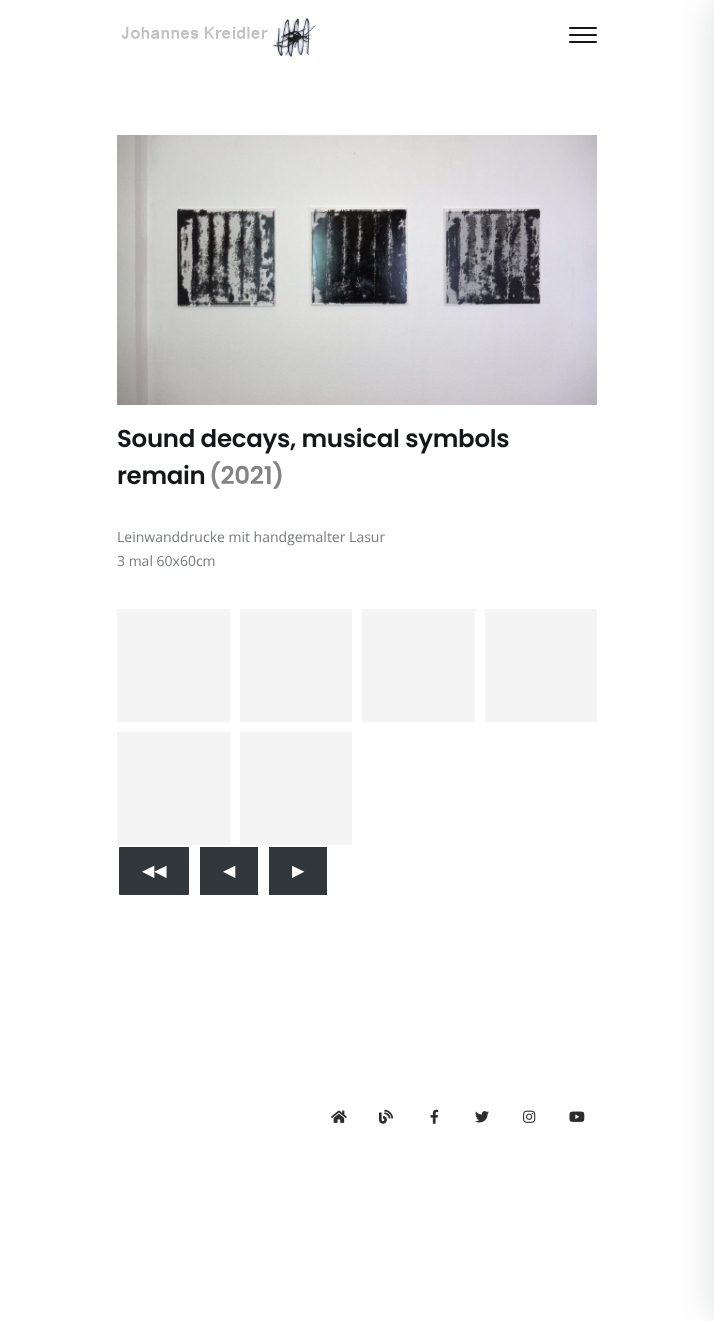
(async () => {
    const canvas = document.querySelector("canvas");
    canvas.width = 714;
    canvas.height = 1321;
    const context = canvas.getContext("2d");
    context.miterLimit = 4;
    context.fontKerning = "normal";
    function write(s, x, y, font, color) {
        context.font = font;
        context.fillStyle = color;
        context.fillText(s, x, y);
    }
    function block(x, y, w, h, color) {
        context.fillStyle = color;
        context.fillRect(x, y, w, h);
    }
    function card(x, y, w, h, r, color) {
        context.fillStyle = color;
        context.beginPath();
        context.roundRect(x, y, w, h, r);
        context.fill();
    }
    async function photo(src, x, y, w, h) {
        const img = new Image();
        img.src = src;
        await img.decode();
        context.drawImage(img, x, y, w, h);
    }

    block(0, 0, 714, 1321, "rgb(255, 255, 255)");
    await photo("media/1.png", 121, 15, 195, 42);
    card(569, 34, 28, 2, 1, "rgb(20, 22, 24)");
    card(569, 27, 28, 2, 1, "rgb(20, 22, 24)");
    card(569, 41, 28, 2, 1, "rgb(20, 22, 24)");
    await photo("media/2.png", 117, 135, 480, 270);
    context.letterSpacing = "-0.3px";
    write("Sound decays, musical symbols", 117, 447, "600 24.5px Poppins", "rgb(20, 22, 24)");
    write("remain", 117, 484, "600 24.5px Poppins", "rgb(20, 22, 24)");
    write("(2021)", 209, 484, "600 24.5px Poppins", "rgb(132, 132, 132)");
    context.letterSpacing = "0px";
    write("Leinwanddrucke mit handgemalter Lasur", 117, 542, "14px Open Sans", "rgb(118, 122, 125)");
    write("3 mal 60x60cm", 117, 566, "14px Open Sans", "rgb(118, 122, 125)");
    block(117, 609, 113, 113, "rgb(244, 244, 244)");
    block(240, 609, 112, 113, "rgb(244, 244, 244)");
    block(362, 609, 113, 113, "rgb(244, 244, 244)");
    block(485, 609, 112, 113, "rgb(244, 244, 244)");
    block(117, 732, 113, 113, "rgb(244, 244, 244)");
    block(240, 732, 112, 113, "rgb(244, 244, 244)");
    context.fillStyle = "rgb(50, 55, 60)";
    context.beginPath();
    context.roundRect(118, 846, 72, 50, 2);
    context.fill();
    context.strokeStyle = "rgb(255, 255, 255)";
    context.lineWidth = 2;
    context.stroke();
    write("◀︎◀︎", 142, 876, "16px DejaVu Sans", "rgb(255, 255, 255)");
    block(200, 847, 58, 48, "rgb(50, 55, 60)");
    write("◀︎", 223, 876, "16px DejaVu Sans", "rgb(255, 255, 255)");
    block(269, 847, 58, 48, "rgb(50, 55, 60)");
    write("▶︎", 292, 876, "16px DejaVu Sans", "rgb(255, 255, 255)");
    await photo("media/3.png", 331, 1110, 16, 13);
    await photo("media/4.png", 379, 1109, 14, 15);
    await photo("media/5.png", 430, 1109, 9, 15);
    await photo("media/6.png", 475, 1111, 14, 12);
    await photo("media/7.png", 523, 1110, 13, 13);
    await photo("media/8.png", 569, 1111, 16, 11);
    context.fillStyle = "rgba(24, 27, 30, 0.14)";
    context.filter = "blur(20px)";
    context.beginPath();
    context.rect(714, 0, 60, 1321);
    context.fill();
    context.filter = "none";
})();
